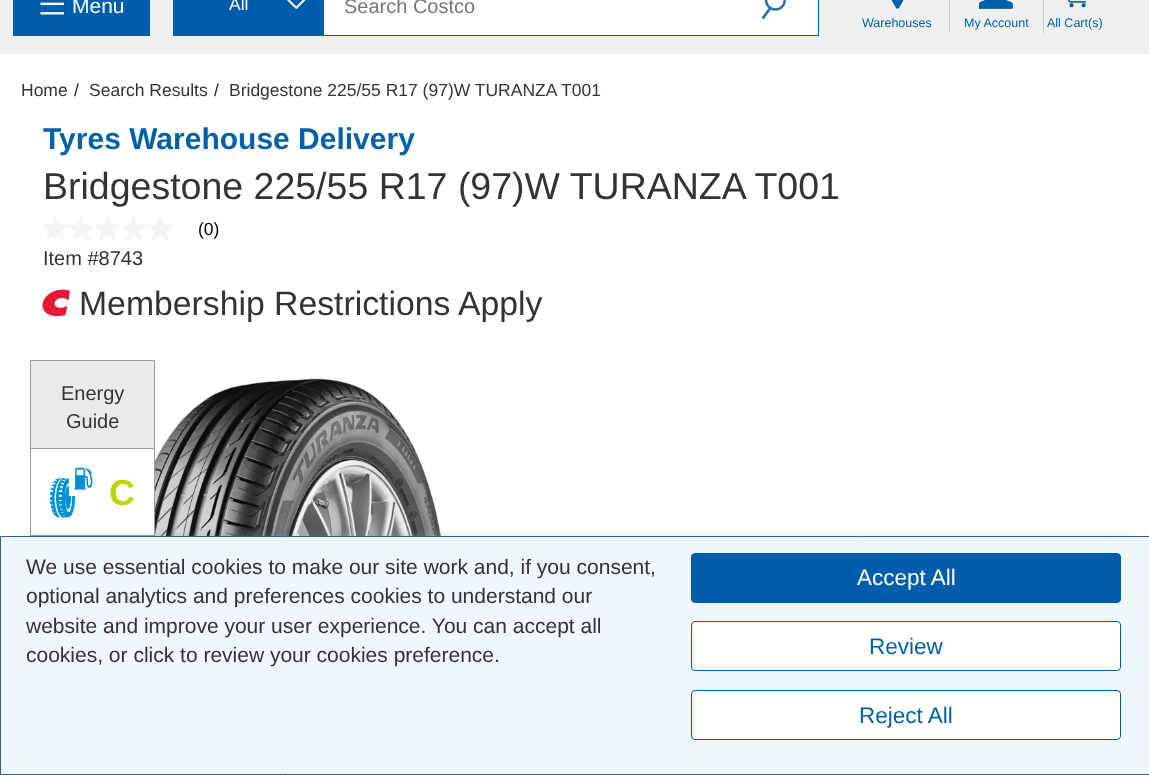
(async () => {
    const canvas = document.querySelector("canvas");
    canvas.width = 1149;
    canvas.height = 775;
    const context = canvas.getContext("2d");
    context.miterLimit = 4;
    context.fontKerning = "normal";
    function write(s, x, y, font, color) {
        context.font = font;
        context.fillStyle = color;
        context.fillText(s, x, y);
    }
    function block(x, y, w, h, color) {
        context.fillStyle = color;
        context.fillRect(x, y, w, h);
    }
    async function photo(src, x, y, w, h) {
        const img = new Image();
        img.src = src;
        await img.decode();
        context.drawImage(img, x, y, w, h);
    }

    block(0, 0, 1149, 775, "rgb(255, 255, 255)");
    block(0, 0, 1149, 54, "rgb(239, 239, 239)");
    block(13, 0, 137, 36, "rgb(0, 93, 171)");
    await photo("media/1.png", 40, 2, 25, 13);
    write("Menu", 72, 13, "21px Liberation Sans", "rgb(255, 255, 255)");
    block(324, 0, 494, 35, "rgb(255, 255, 255)");
    context.strokeStyle = "rgb(0, 93, 171)";
    context.strokeRect(173.5, -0.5, 645, 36);
    block(174, 0, 150, 35, "rgb(0, 93, 171)");
    write("All", 229, 10, "17.5px Liberation Sans", "rgb(255, 255, 255)");
    await photo("media/2.png", 287, 0, 19, 9);
    write("Search Costco", 344, 13, "20px Liberation Sans", "rgb(117, 117, 117)");
    await photo("media/3.png", 761, 0, 25, 19);
    block(949, 0, 1, 33, "rgb(202, 202, 202)");
    await photo("media/4.png", 891, 0, 13, 9);
    write("Warehouses", 862, 27, "12.5px Liberation Sans", "rgb(0, 96, 169)");
    block(1043, 0, 1, 33, "rgb(202, 202, 202)");
    await photo("media/5.png", 979, 0, 34, 9);
    write("My Account", 964, 27, "12.5px Liberation Sans", "rgb(0, 96, 169)");
    await photo("media/6.png", 1068, 0, 18, 8);
    write("All Cart(s)", 1047, 27, "12.5px Liberation Sans", "rgb(0, 96, 169)");
    context.strokeStyle = "rgb(156, 156, 156)";
    context.strokeRect(30.5, 360.5, 124, 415);
    block(31, 535, 123, 1, "rgb(156, 156, 156)");
    await photo("media/14.png", 155, 378, 292, 158);
    context.filter = "blur(6px)";
    context.beginPath();
    context.rect(18, 541, 1115, 204);
    context.fill();
    context.filter = "none";
    context.fillStyle = "rgb(239, 247, 251)";
    context.beginPath();
    context.rect(0.5, 536.5, 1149, 238);
    context.fill();
    context.strokeStyle = "rgb(42, 98, 147)";
    context.stroke();
    write("We use essential cookies to make our site work and, if you consent,", 26, 574, "21px Liberation Sans", "rgb(51, 51, 51)");
    write("optional analytics and preferences cookies to understand our", 26, 603, "21px Liberation Sans", "rgb(51, 51, 51)");
    write("website and improve your user experience. You can accept all", 26, 633, "21px Liberation Sans", "rgb(51, 51, 51)");
    write("cookies, or click to review your cookies preference.", 26, 662, "21px Liberation Sans", "rgb(51, 51, 51)");
    context.fillStyle = "rgb(0, 93, 171)";
    context.beginPath();
    context.roundRect(691.5, 553.5, 429, 49, 3.5);
    context.fill();
    context.strokeStyle = "rgb(0, 93, 171)";
    context.stroke();
    write("Accept All", 857, 585, "22.5px Liberation Sans", "rgb(255, 255, 255)");
    context.beginPath();
    context.roundRect(691.5, 621.5, 429, 49, 3.5);
    context.fill();
    context.stroke();
    write("Review", 869, 654, "22.5px Liberation Sans", "rgb(0, 96, 169)");
    context.fillStyle = "rgb(255, 255, 255)";
    context.beginPath();
    context.roundRect(691.5, 690.5, 429, 49, 3.5);
    context.fill();
    context.stroke();
    write("Reject All", 859, 723, "22.5px Liberation Sans", "rgb(0, 96, 169)");
    write("Home", 21, 96, "17.5px Liberation Sans", "rgb(51, 51, 51)");
    write("/", 74, 96, "17.5px Liberation Sans", "rgb(25, 33, 43)");
    write("Search Results", 89, 96, "17.5px Liberation Sans", "rgb(51, 51, 51)");
    write("/", 214, 96, "17.5px Liberation Sans", "rgb(25, 33, 43)");
    write("Bridgestone 225/55 R17 (97)W TURANZA T001", 229, 96, "17.5px Liberation Sans", "rgb(51, 51, 51)");
    write("Tyres Warehouse Delivery", 43, 149, "bold 30px Liberation Sans", "rgb(0, 96, 169)");
    write("Bridgestone 225/55 R17 (97)W TURANZA T001", 43, 199, "37.5px Liberation Sans", "rgb(51, 51, 51)");
    await photo("media/7.png", 43, 216, 25, 24);
    await photo("media/8.png", 68, 216, 26, 24);
    await photo("media/9.png", 95, 216, 25, 24);
    await photo("media/10.png", 121, 216, 25, 24);
    await photo("media/11.png", 147, 216, 26, 24);
    write("(0)", 198, 235, "17.5px Liberation Sans", "rgb(0, 0, 0)");
    write("Item #8743", 43, 265, "20px Liberation Sans", "rgb(51, 51, 51)");
    await photo("media/12.png", 42, 289, 28, 28);
    write("Membership Restrictions Apply", 79, 315, "33.75px Liberation Sans", "rgb(51, 51, 51)");
    block(31, 361, 123, 87, "rgb(234, 234, 234)");
    block(31, 448, 123, 1, "rgb(156, 156, 156)");
    write("Energy", 61, 400, "20px Liberation Sans", "rgb(51, 51, 51)");
    write("Guide", 66, 428, "20px Liberation Sans", "rgb(51, 51, 51)");
    await photo("media/13.png", 50, 467, 43, 51);
    write("C", 109, 505, "bold 36px Liberation Sans", "rgb(193, 213, 4)");
})();
